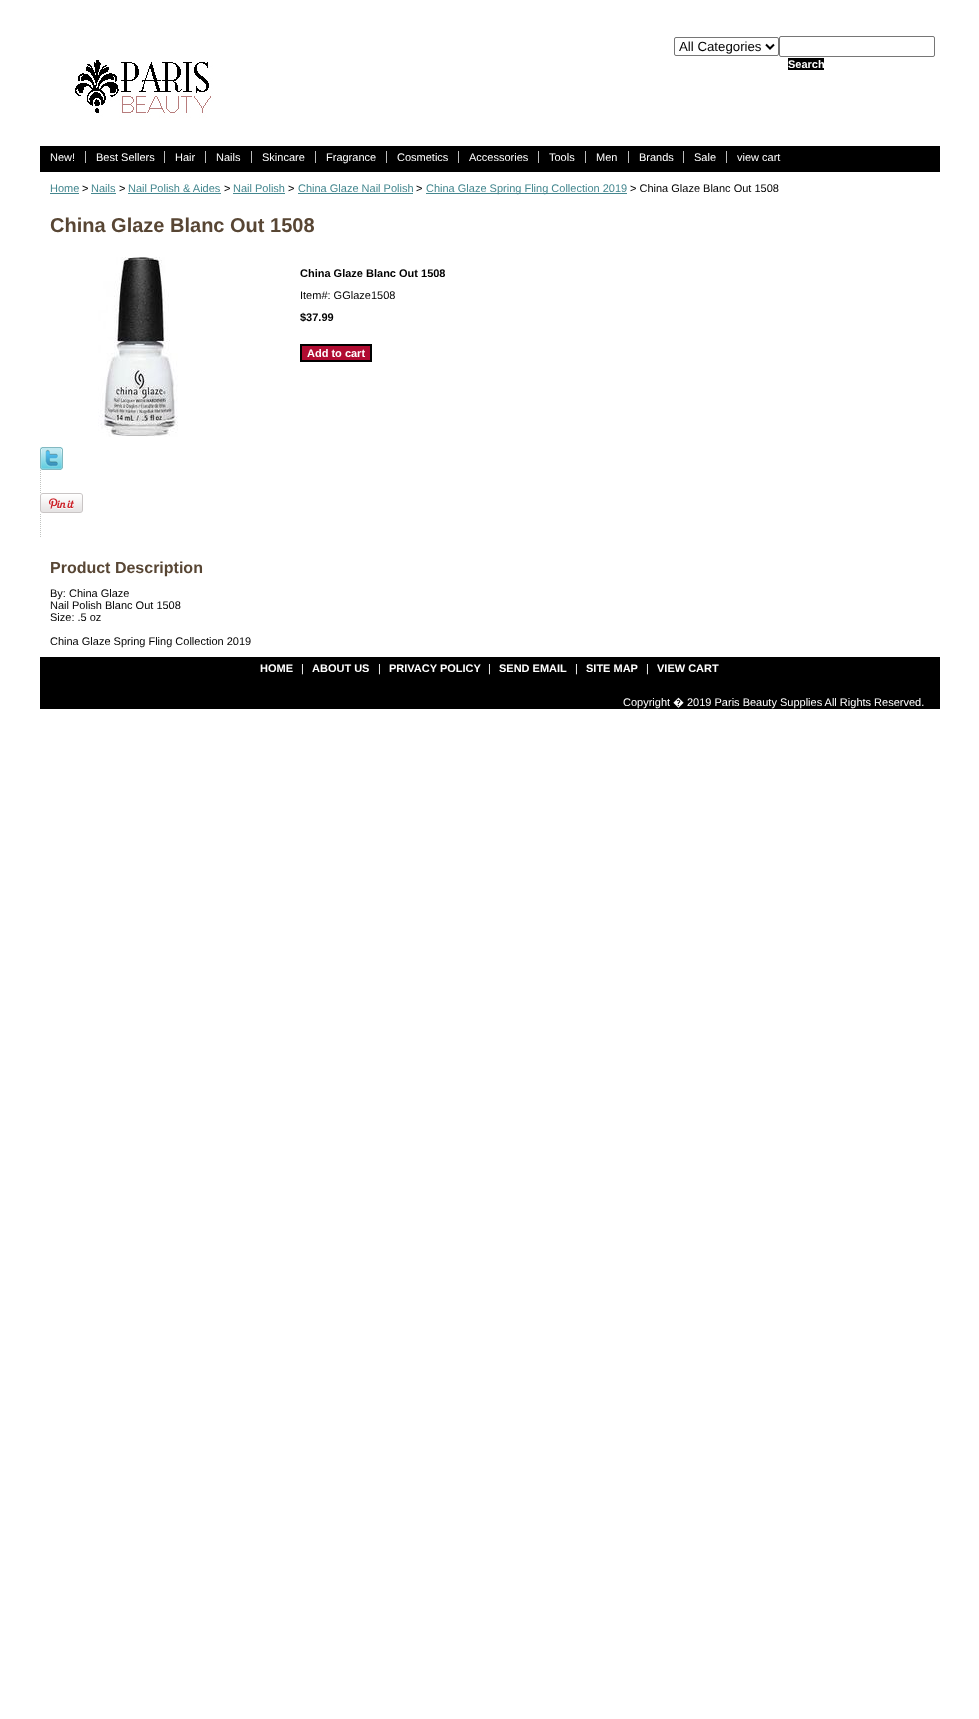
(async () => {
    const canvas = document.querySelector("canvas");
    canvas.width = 979;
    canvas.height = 1719;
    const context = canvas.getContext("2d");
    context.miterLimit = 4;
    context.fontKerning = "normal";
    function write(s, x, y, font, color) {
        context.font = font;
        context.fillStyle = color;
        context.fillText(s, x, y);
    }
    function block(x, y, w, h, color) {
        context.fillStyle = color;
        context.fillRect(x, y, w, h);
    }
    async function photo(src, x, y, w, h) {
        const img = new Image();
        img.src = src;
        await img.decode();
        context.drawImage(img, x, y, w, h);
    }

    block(0, 0, 979, 1719, "rgb(255, 255, 255)");
    context.beginPath();
    context.roundRect(674.5, 37.5, 104, 18, 1.5);
    context.strokeStyle = "rgb(118, 118, 118)";
    context.stroke();
    context.beginPath();
    context.moveTo(766, 44.5);
    context.lineTo(770, 48.5);
    context.lineTo(774, 44.5);
    context.strokeStyle = "rgb(0, 0, 0)";
    context.lineWidth = 2;
    context.stroke();
    write("All Categories", 679, 51, "13.25px Liberation Sans", "rgb(0, 0, 0)");
    context.beginPath();
    context.roundRect(779.5, 36.5, 155, 20, 1.5);
    context.strokeStyle = "rgb(118, 118, 118)";
    context.lineWidth = 1;
    context.stroke();
    block(788, 58, 36, 12, "rgb(0, 0, 0)");
    write("Search", 788, 68, "bold 11px Liberation Sans", "rgb(255, 255, 255)");
    await photo("media/1.png", 75, 60, 138, 58);
    block(40, 146, 900, 26, "rgb(0, 0, 0)");
    write("New!", 50, 161, "11px Liberation Sans", "rgb(255, 255, 255)");
    block(85, 151, 1, 12, "rgb(188, 188, 188)");
    write("Best Sellers", 96, 161, "11px Liberation Sans", "rgb(255, 255, 255)");
    block(164, 151, 1, 12, "rgb(188, 188, 188)");
    write("Hair", 175, 161, "11px Liberation Sans", "rgb(255, 255, 255)");
    block(205, 151, 1, 12, "rgb(188, 188, 188)");
    write("Nails", 216, 161, "11px Liberation Sans", "rgb(255, 255, 255)");
    block(251, 151, 1, 12, "rgb(188, 188, 188)");
    write("Skincare", 262, 161, "11px Liberation Sans", "rgb(255, 255, 255)");
    block(315, 151, 1, 12, "rgb(188, 188, 188)");
    write("Fragrance", 326, 161, "11px Liberation Sans", "rgb(255, 255, 255)");
    block(386, 151, 1, 12, "rgb(188, 188, 188)");
    write("Cosmetics", 397, 161, "11px Liberation Sans", "rgb(255, 255, 255)");
    block(458, 151, 1, 12, "rgb(188, 188, 188)");
    write("Accessories", 469, 161, "11px Liberation Sans", "rgb(255, 255, 255)");
    block(538, 151, 1, 12, "rgb(188, 188, 188)");
    write("Tools", 549, 161, "11px Liberation Sans", "rgb(255, 255, 255)");
    block(585, 151, 1, 12, "rgb(188, 188, 188)");
    write("Men", 596, 161, "11px Liberation Sans", "rgb(255, 255, 255)");
    block(628, 151, 1, 12, "rgb(188, 188, 188)");
    write("Brands", 639, 161, "11px Liberation Sans", "rgb(255, 255, 255)");
    block(683, 151, 1, 12, "rgb(188, 188, 188)");
    write("Sale", 694, 161, "11px Liberation Sans", "rgb(255, 255, 255)");
    block(726, 151, 1, 12, "rgb(188, 188, 188)");
    write("view cart", 737, 161, "11px Liberation Sans", "rgb(255, 255, 255)");
    write("Home", 50, 192, "11px Liberation Sans", "rgb(68, 135, 143)");
    block(50, 193, 29, 1, "rgb(68, 135, 143)");
    write(">", 82, 192, "11px Liberation Sans", "rgb(0, 0, 0)");
    write("Nails", 91, 192, "11px Liberation Sans", "rgb(68, 135, 143)");
    block(91, 193, 25, 1, "rgb(68, 135, 143)");
    write(">", 119, 192, "11px Liberation Sans", "rgb(0, 0, 0)");
    write("Nail Polish & Aides", 128, 192, "11px Liberation Sans", "rgb(68, 135, 143)");
    block(128, 193, 93, 1, "rgb(68, 135, 143)");
    write(">", 224, 192, "11px Liberation Sans", "rgb(0, 0, 0)");
    write("Nail Polish", 233, 192, "11px Liberation Sans", "rgb(68, 135, 143)");
    block(233, 193, 52, 1, "rgb(68, 135, 143)");
    write(">", 288, 192, "11px Liberation Sans", "rgb(0, 0, 0)");
    write("China Glaze Nail Polish", 298, 192, "11px Liberation Sans", "rgb(68, 135, 143)");
    block(298, 193, 115, 1, "rgb(68, 135, 143)");
    write(">", 416, 192, "11px Liberation Sans", "rgb(0, 0, 0)");
    block(426, 193, 201, 1, "rgb(68, 135, 143)");
    write("China Glaze Spring Fling Collection 2019", 426, 192, "11px Liberation Sans", "rgb(68, 135, 143)");
    write("> China Glaze Blanc Out 1508", 630, 192, "11px Liberation Sans", "rgb(0, 0, 0)");
    write("China Glaze Blanc Out 1508", 50, 232, "bold 20px Liberation Sans", "rgb(88, 70, 52)");
    await photo("media/2.png", 98, 257, 80, 180);
    write("China Glaze Blanc Out 1508", 300, 277, "bold 11px Liberation Sans", "rgb(0, 0, 0)");
    write("Item#: GGlaze1508", 300, 299, "11px Liberation Sans", "rgb(0, 0, 0)");
    write("$37.99", 300, 321, "bold 11px Liberation Sans", "rgb(0, 0, 0)");
    context.fillStyle = "rgb(177, 11, 49)";
    context.beginPath();
    context.rect(301, 345, 70, 16);
    context.fill();
    context.strokeStyle = "rgb(0, 0, 0)";
    context.lineWidth = 2;
    context.stroke();
    write("Add to cart", 307, 357, "bold 11px Liberation Sans", "rgb(255, 255, 255)");
    await photo("media/3.png", 40, 447, 23, 23);
    await photo("media/4.png", 40, 470, 1, 23);
    await photo("media/5.png", 40, 493, 43, 20);
    await photo("media/4.png", 40, 514, 1, 23);
    write("Product Description", 50, 573, "bold 16px Liberation Sans", "rgb(88, 70, 52)");
    write("By: China Glaze", 50, 597, "11px Liberation Sans", "rgb(0, 0, 0)");
    write("Nail Polish Blanc Out 1508", 50, 609, "11px Liberation Sans", "rgb(0, 0, 0)");
    write("Size: .5 oz", 50, 621, "11px Liberation Sans", "rgb(0, 0, 0)");
    write("China Glaze Spring Fling Collection 2019", 50, 645, "11px Liberation Sans", "rgb(0, 0, 0)");
    block(40, 657, 900, 52, "rgb(0, 0, 0)");
    write("HOME", 260, 672, "bold 11px Liberation Sans", "rgb(255, 255, 255)");
    write("|", 301, 672, "11px Liberation Sans", "rgb(255, 255, 255)");
    write("ABOUT US", 312, 672, "bold 11px Liberation Sans", "rgb(255, 255, 255)");
    write("|", 378, 672, "11px Liberation Sans", "rgb(255, 255, 255)");
    write("PRIVACY POLICY", 389, 672, "bold 11px Liberation Sans", "rgb(255, 255, 255)");
    write("|", 488, 672, "11px Liberation Sans", "rgb(255, 255, 255)");
    write("SEND EMAIL", 499, 672, "bold 11px Liberation Sans", "rgb(255, 255, 255)");
    write("|", 575, 672, "11px Liberation Sans", "rgb(255, 255, 255)");
    write("SITE MAP", 586, 672, "bold 11px Liberation Sans", "rgb(255, 255, 255)");
    write("|", 646, 672, "11px Liberation Sans", "rgb(255, 255, 255)");
    write("VIEW CART", 657, 672, "bold 11px Liberation Sans", "rgb(255, 255, 255)");
    write("Copyright", 623, 706, "11px Liberation Sans", "rgb(255, 255, 255)");
    write("�", 673, 706, "11px Noto Sans", "rgb(255, 255, 255)");
    write("2019 Paris Beauty Supplies All Rights Reserved.", 687, 706, "11px Liberation Sans", "rgb(255, 255, 255)");
})();
